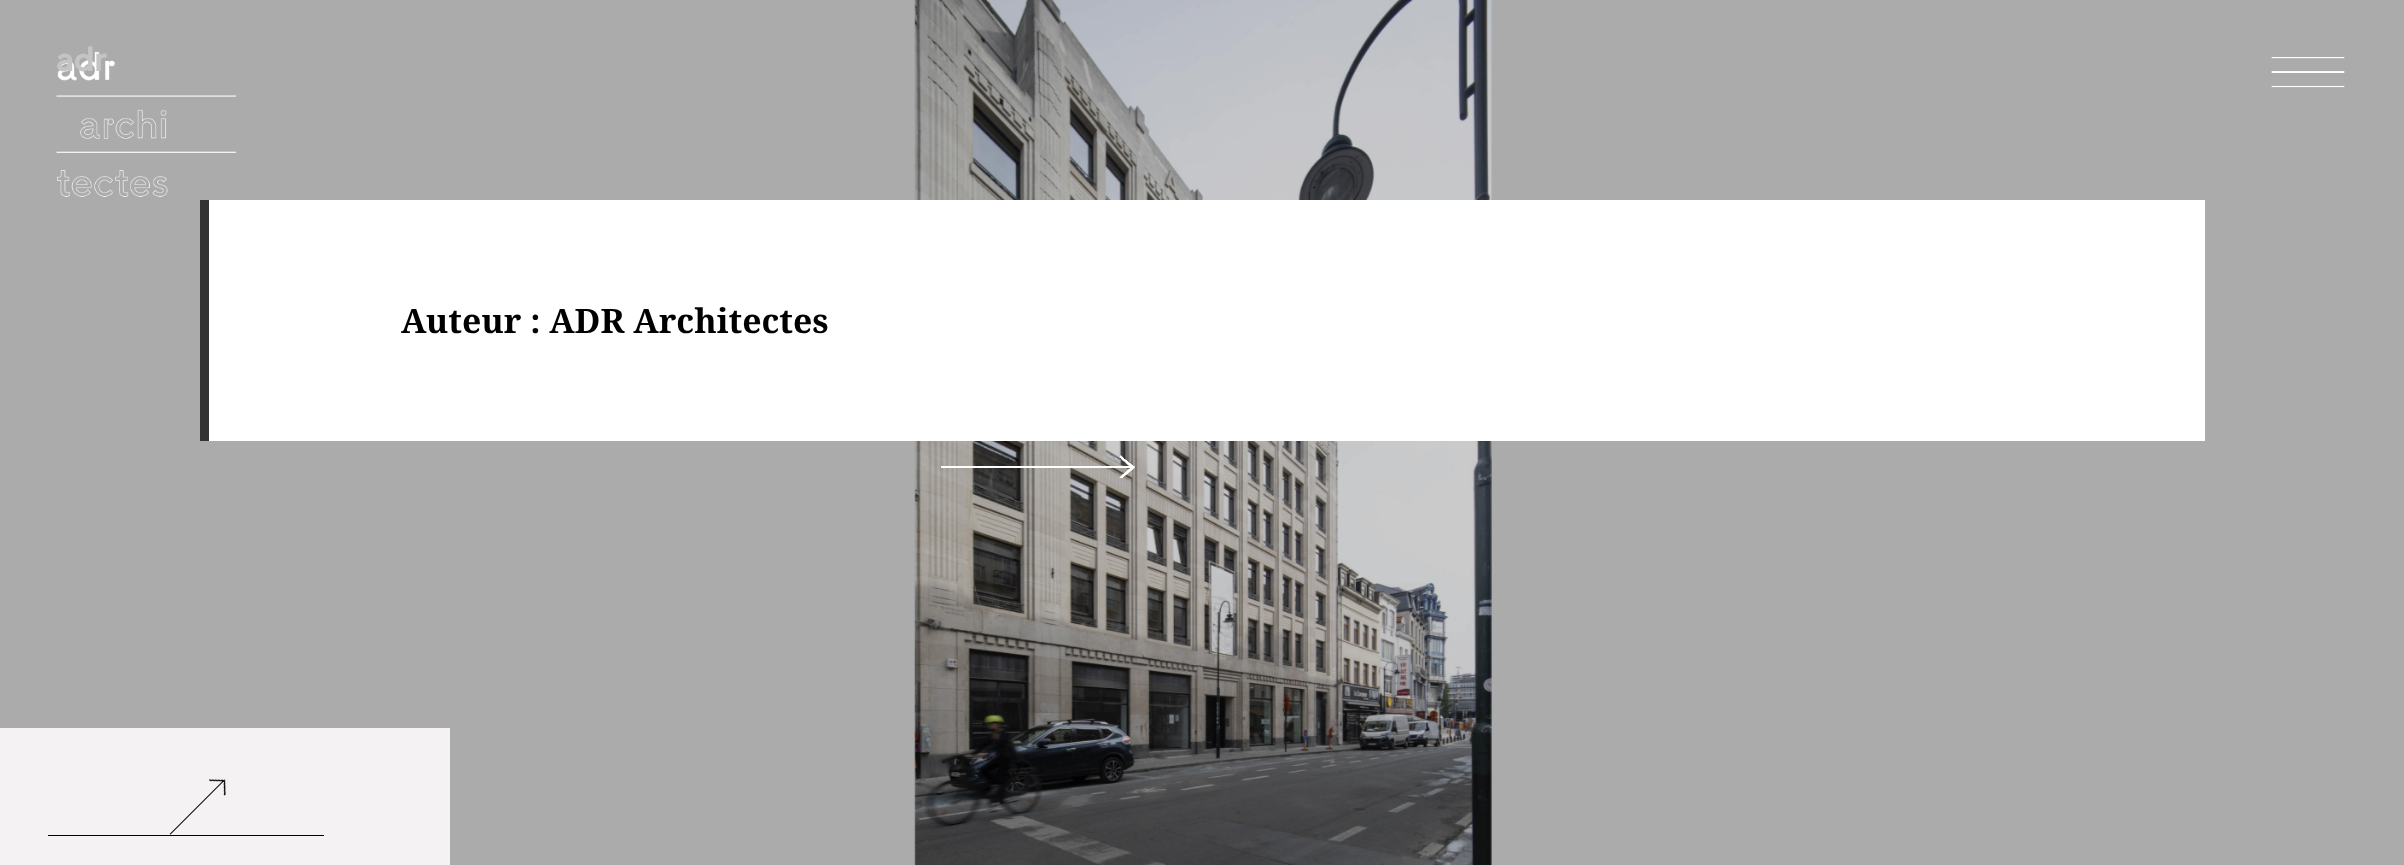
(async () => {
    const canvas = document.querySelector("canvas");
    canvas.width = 2404;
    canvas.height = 865;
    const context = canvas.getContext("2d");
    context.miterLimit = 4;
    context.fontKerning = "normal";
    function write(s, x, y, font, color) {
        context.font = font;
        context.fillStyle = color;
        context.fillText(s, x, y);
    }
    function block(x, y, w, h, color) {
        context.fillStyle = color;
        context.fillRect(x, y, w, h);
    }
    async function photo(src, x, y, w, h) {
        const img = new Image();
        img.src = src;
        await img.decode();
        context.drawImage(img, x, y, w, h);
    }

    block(0, 0, 2404, 865, "rgb(171, 171, 171)");
    await photo("media/1.png", 56, 51, 181, 146);
    write("adr", 56, 71, "bold 33.75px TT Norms", "rgb(196, 196, 196)");
    await photo("media/2.png", 2271, 57, 74, 31);
    await photo("media/12.png", 914, 0, 578, 865);
    block(209, 200, 1996, 241, "rgb(255, 255, 255)");
    block(200, 200, 9, 241, "rgb(51, 51, 51)");
    write("Auteur : ADR Architectes", 401, 333, "bold 33.75px Noto Serif", "rgb(0, 0, 0)");
    await photo("media/3.png", 941, 455, 194, 23);
    await photo("media/4.png", 941, 455, 194, 23);
    await photo("media/5.png", 941, 455, 194, 23);
    await photo("media/6.png", 941, 455, 194, 23);
    await photo("media/7.png", 941, 455, 194, 23);
    await photo("media/8.png", 941, 455, 194, 22);
    await photo("media/9.png", 941, 455, 194, 22);
    await photo("media/10.png", 941, 455, 194, 22);
    block(0, 728, 450, 137, "rgb(244, 242, 243)");
    await photo("media/11.png", 169, 779, 57, 56);
    block(48, 835, 276, 1, "rgb(0, 0, 0)");
})();
